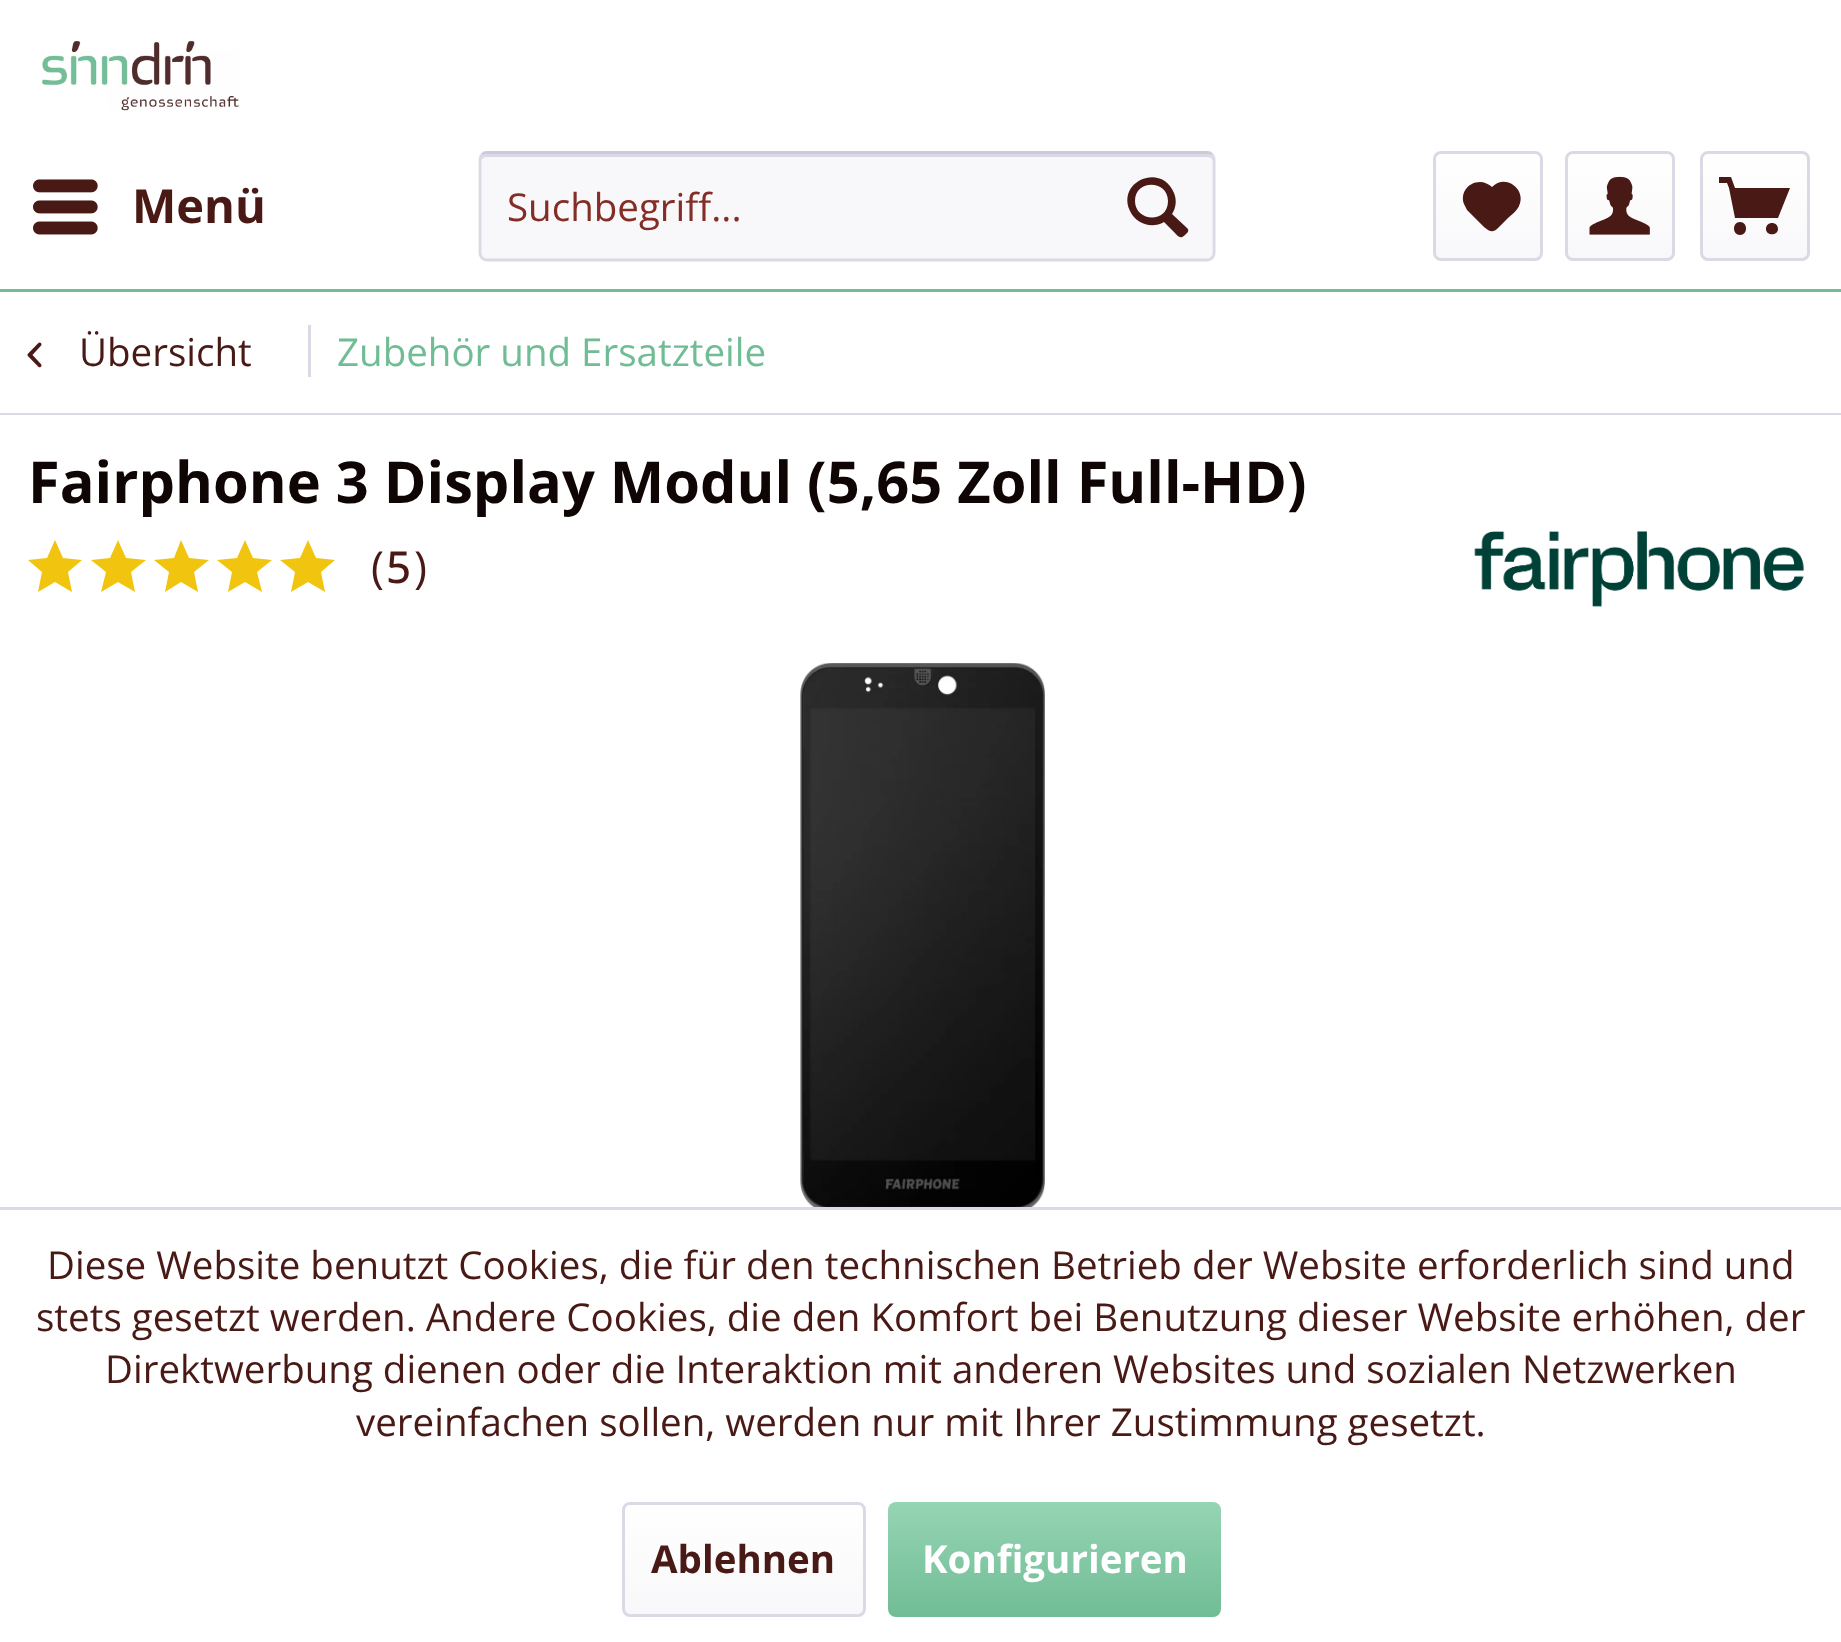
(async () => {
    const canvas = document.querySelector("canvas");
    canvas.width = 1841;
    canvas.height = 1642;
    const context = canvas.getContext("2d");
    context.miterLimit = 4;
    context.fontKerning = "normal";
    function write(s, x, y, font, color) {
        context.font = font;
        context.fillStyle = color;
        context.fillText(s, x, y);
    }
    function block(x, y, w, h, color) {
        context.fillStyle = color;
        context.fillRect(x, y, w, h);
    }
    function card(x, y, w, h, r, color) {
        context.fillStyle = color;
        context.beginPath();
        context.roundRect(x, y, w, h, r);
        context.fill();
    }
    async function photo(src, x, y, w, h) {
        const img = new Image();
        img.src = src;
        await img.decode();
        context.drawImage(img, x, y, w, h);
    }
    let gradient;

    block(0, 0, 1841, 1642, "rgb(255, 255, 255)");
    block(0, 289, 1841, 3, "rgb(112, 189, 149)");
    await photo("media/1.png", 41, 40, 198, 71);
    await photo("media/2.png", 33, 179, 65, 56);
    write("Menü", 132, 223, "bold 47px Open Sans", "rgb(73, 25, 21)");
    card(479, 151, 737, 110, 8, "rgb(248, 248, 250)");
    context.fillStyle = "rgb(218, 218, 229)";
    context.beginPath();
    context.moveTo(487, 157);
    context.lineTo(1207, 157);
    context.bezierCurveTo(1210, 157, 1213, 159, 1213, 162);
    context.lineTo(1213, 160);
    context.bezierCurveTo(1213, 157, 1210, 154, 1207, 154);
    context.lineTo(487, 154);
    context.bezierCurveTo(484, 154, 481, 157, 481, 160);
    context.lineTo(481, 162);
    context.bezierCurveTo(481, 159, 484, 157, 487, 157);
    context.closePath();
    context.fill();
    context.beginPath();
    context.moveTo(482, 154.5);
    context.bezierCurveTo(483, 153.5, 485, 152.5, 487, 152.5);
    context.lineTo(1207, 152.5);
    context.bezierCurveTo(1209, 152.5, 1211, 153.5, 1212, 154.5);
    context.strokeStyle = "rgb(203, 203, 219)";
    context.lineWidth = 2.8;
    context.stroke();
    context.beginPath();
    context.moveTo(1212, 154.5);
    context.bezierCurveTo(1213.5, 156, 1214, 157.5, 1214, 159.5);
    context.lineTo(1214, 253);
    context.bezierCurveTo(1214, 255, 1213.5, 256.5, 1212, 258);
    context.bezierCurveTo(1211, 259, 1209, 260, 1207, 260);
    context.lineTo(487, 260);
    context.bezierCurveTo(485, 260, 483, 259, 482, 258);
    context.bezierCurveTo(480.5, 256.5, 480, 255, 480, 253);
    context.lineTo(480, 159.5);
    context.bezierCurveTo(480, 157.5, 480.5, 156, 482, 154.5);
    context.strokeStyle = "rgb(218, 218, 229)";
    context.stroke();
    write("Suchbegriff...", 507, 221, "38.5px Open Sans", "rgb(132, 45, 38)");
    context.fillStyle = "rgb(73, 25, 21)";
    context.beginPath();
    context.moveTo(1187, 228);
    context.lineTo(1172, 214);
    context.bezierCurveTo(1176, 208, 1177, 200, 1174, 193);
    context.bezierCurveTo(1162, 162, 1116, 181, 1130, 211);
    context.bezierCurveTo(1136, 224, 1152, 229, 1164, 222);
    context.lineTo(1174, 232);
    context.bezierCurveTo(1178, 236, 1180, 240, 1185, 235);
    context.bezierCurveTo(1187, 233, 1190, 231, 1187, 228);
    context.closePath();
    context.moveTo(1135, 201);
    context.bezierCurveTo(1135, 179, 1168, 180, 1168, 201);
    context.bezierCurveTo(1168, 224, 1135, 222, 1135, 201);
    context.closePath();
    context.fill();
    gradient = context.createLinearGradient(1488, 154, 1488, 259);
    gradient.addColorStop(0, "rgb(255, 255, 255)");
    gradient.addColorStop(1, "rgb(248, 248, 250)");
    context.fillStyle = gradient;
    context.beginPath();
    context.roundRect(1436, 154, 104, 105, 6);
    context.fill();
    context.beginPath();
    context.roundRect(1434.5, 152.5, 107, 107, 6.5);
    context.lineWidth = 3;
    context.stroke();
    context.fillStyle = "rgb(73, 25, 21)";
    context.beginPath();
    context.moveTo(1480, 182);
    context.bezierCurveTo(1468, 182, 1460, 193, 1464, 204);
    context.bezierCurveTo(1465, 206, 1466, 208, 1467, 210);
    context.lineTo(1484, 227);
    context.bezierCurveTo(1490, 232, 1493, 233, 1498, 228);
    context.lineTo(1507, 219);
    context.bezierCurveTo(1511, 215, 1517, 211, 1519, 206);
    context.bezierCurveTo(1527, 189, 1505, 173, 1492, 187);
    context.bezierCurveTo(1489, 184, 1484, 182, 1480, 182);
    context.closePath();
    context.fill();
    gradient = context.createLinearGradient(1620, 154, 1620, 259);
    gradient.addColorStop(0, "rgb(255, 255, 255)");
    gradient.addColorStop(1, "rgb(248, 248, 250)");
    context.fillStyle = gradient;
    context.beginPath();
    context.roundRect(1568, 154, 104, 105, 6);
    context.fill();
    context.beginPath();
    context.roundRect(1566.5, 152.5, 107, 107, 6.5);
    context.stroke();
    await photo("media/3.png", 1589, 176, 61, 59);
    gradient = context.createLinearGradient(1755, 154, 1755, 259);
    gradient.addColorStop(0, "rgb(255, 255, 255)");
    gradient.addColorStop(1, "rgb(248, 248, 250)");
    context.fillStyle = gradient;
    context.beginPath();
    context.roundRect(1702, 154, 105, 105, 6);
    context.fill();
    context.beginPath();
    context.roundRect(1701.5, 152.5, 107, 107, 6.5);
    context.stroke();
    context.fillStyle = "rgb(73, 25, 21)";
    context.beginPath();
    context.moveTo(1735, 218);
    context.lineTo(1778, 218);
    context.lineTo(1790, 188);
    context.lineTo(1735, 188);
    context.lineTo(1731, 177);
    context.lineTo(1719, 177);
    context.lineTo(1719, 183);
    context.lineTo(1727, 183);
    context.lineTo(1729, 188);
    context.closePath();
    context.moveTo(1740, 222);
    context.bezierCurveTo(1732, 222, 1732, 235, 1740, 235);
    context.bezierCurveTo(1748, 235, 1748, 222, 1740, 222);
    context.closePath();
    context.moveTo(1778, 229);
    context.bezierCurveTo(1778, 236, 1766, 236, 1766, 229);
    context.bezierCurveTo(1766, 221, 1778, 221, 1778, 229);
    context.closePath();
    context.fill();
    block(0, 413, 1841, 2, "rgb(218, 218, 229)");
    await photo("media/4.png", 27, 342, 15, 26);
    write("Übersicht", 79, 366, "38.5px Open Sans", "rgb(73, 25, 21)");
    block(308, 325, 3, 52, "rgb(218, 218, 229)");
    write("Zubehör und Ersatzteile", 337, 366, "38.5px Open Sans", "rgb(112, 189, 149)");
    write("Fairphone 3 Display Modul (5,65 Zoll Full-HD)", 28, 503, "bold 57.75px Open Sans", "rgb(14, 5, 4)");
    context.fillStyle = "rgb(241, 196, 15)";
    context.beginPath();
    context.moveTo(55, 540);
    context.lineTo(47, 558);
    context.lineTo(28, 560);
    context.lineTo(42, 572);
    context.lineTo(38, 592);
    context.lineTo(55, 582);
    context.lineTo(72, 592);
    context.lineTo(68, 572);
    context.lineTo(82, 560);
    context.lineTo(63, 558);
    context.closePath();
    context.fill();
    context.beginPath();
    context.moveTo(118, 540);
    context.lineTo(110, 558);
    context.lineTo(91, 560);
    context.lineTo(106, 572);
    context.lineTo(101, 592);
    context.lineTo(118, 582);
    context.lineTo(135, 592);
    context.lineTo(131, 572);
    context.lineTo(146, 560);
    context.lineTo(126, 558);
    context.closePath();
    context.fill();
    context.beginPath();
    context.moveTo(181, 540);
    context.lineTo(174, 558);
    context.lineTo(154, 560);
    context.lineTo(169, 572);
    context.lineTo(165, 592);
    context.lineTo(181, 582);
    context.lineTo(198, 592);
    context.lineTo(194, 572);
    context.lineTo(209, 560);
    context.lineTo(189, 558);
    context.closePath();
    context.fill();
    context.beginPath();
    context.moveTo(245, 540);
    context.lineTo(237, 558);
    context.lineTo(217, 560);
    context.lineTo(232, 572);
    context.lineTo(228, 592);
    context.lineTo(245, 582);
    context.lineTo(262, 592);
    context.lineTo(257, 572);
    context.lineTo(272, 560);
    context.lineTo(253, 558);
    context.closePath();
    context.fill();
    context.beginPath();
    context.moveTo(308, 540);
    context.lineTo(300, 558);
    context.lineTo(280, 560);
    context.lineTo(295, 572);
    context.lineTo(291, 592);
    context.lineTo(308, 582);
    context.lineTo(325, 592);
    context.lineTo(321, 572);
    context.lineTo(335, 560);
    context.lineTo(316, 558);
    context.closePath();
    context.fill();
    context.letterSpacing = "3px";
    write("(", 371, 583, "44px Open Sans", "rgb(73, 25, 21)");
    write("5", 386, 583, "500 44px Open Sans", "rgb(73, 25, 21)");
    write(")", 414, 583, "44px Open Sans", "rgb(73, 25, 21)");
    await photo("media/5.png", 1474, 531, 330, 76);
    await photo("media/6.png", 800, 663, 245, 544);
    block(0, 1207, 1841, 3, "rgb(218, 218, 229)");
    context.letterSpacing = "0px";
    write("Diese Website benutzt Cookies, die für den technischen Betrieb der Website erforderlich sind und", 47, 1279, "38.5px Open Sans", "rgb(73, 25, 21)");
    write("stets gesetzt werden. Andere Cookies, die den Komfort bei Benutzung dieser Website erhöhen, der", 36, 1331, "38.5px Open Sans", "rgb(73, 25, 21)");
    write("Direktwerbung dienen oder die Interaktion mit anderen Websites und sozialen Netzwerken", 105, 1383, "38.5px Open Sans", "rgb(73, 25, 21)");
    write("vereinfachen sollen, werden nur mit Ihrer Zustimmung gesetzt.", 356, 1436, "38.5px Open Sans", "rgb(73, 25, 21)");
    gradient = context.createLinearGradient(744, 1504, 744, 1614);
    gradient.addColorStop(0, "rgb(255, 255, 255)");
    gradient.addColorStop(1, "rgb(248, 248, 250)");
    context.fillStyle = gradient;
    context.beginPath();
    context.roundRect(624, 1504, 240, 110, 6);
    context.fill();
    context.beginPath();
    context.roundRect(623.5, 1503.5, 241, 112, 6.5);
    context.stroke();
    write("Ablehnen", 651, 1573, "bold 38.5px Open Sans", "rgb(73, 25, 21)");
    gradient = context.createLinearGradient(1055, 1502, 1055, 1617);
    gradient.addColorStop(0, "rgb(150, 212, 180)");
    gradient.addColorStop(1, "rgb(112, 189, 149)");
    context.fillStyle = gradient;
    context.beginPath();
    context.roundRect(888, 1502, 333, 115, 8);
    context.fill();
    write("Konfigurieren", 922, 1573, "bold 38.5px Open Sans", "rgb(255, 255, 255)");
})();
